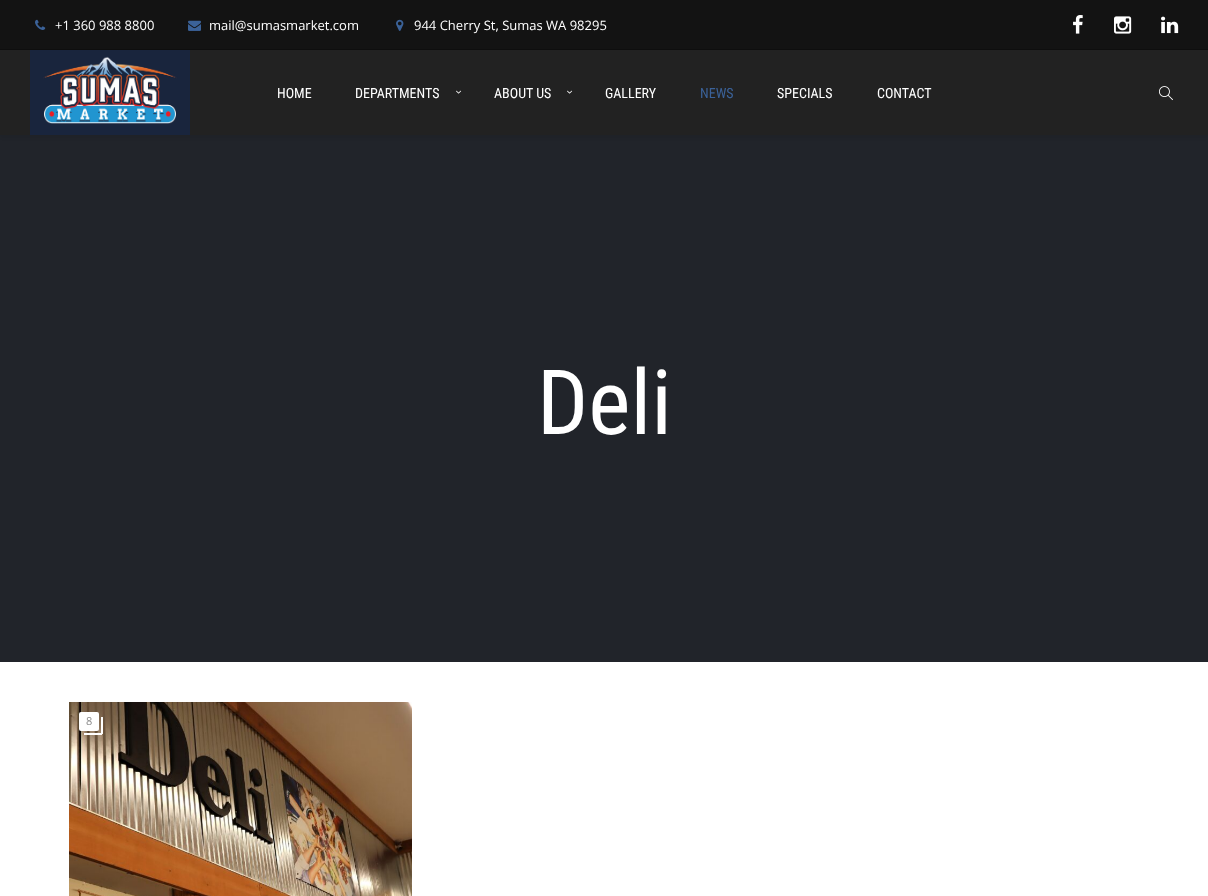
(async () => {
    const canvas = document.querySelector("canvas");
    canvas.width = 1208;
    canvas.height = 896;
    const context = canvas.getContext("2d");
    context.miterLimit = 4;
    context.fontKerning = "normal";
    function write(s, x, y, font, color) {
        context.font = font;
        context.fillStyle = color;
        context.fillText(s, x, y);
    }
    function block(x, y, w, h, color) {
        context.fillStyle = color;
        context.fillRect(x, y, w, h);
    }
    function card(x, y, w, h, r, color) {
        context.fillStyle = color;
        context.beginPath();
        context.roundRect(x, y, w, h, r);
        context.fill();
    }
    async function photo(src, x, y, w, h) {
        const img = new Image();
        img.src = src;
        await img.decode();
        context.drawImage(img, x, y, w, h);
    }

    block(0, 0, 1208, 896, "rgb(255, 255, 255)");
    block(0, 135, 1208, 527, "rgb(33, 36, 42)");
    context.fillStyle = "rgba(0, 0, 0, 0.05)";
    context.filter = "blur(1.5px)";
    context.beginPath();
    context.rect(0, 3, 1208, 135);
    context.fill();
    context.filter = "none";
    block(0, 50, 1208, 85, "rgb(34, 34, 34)");
    block(0, 0, 1208, 49, "rgb(19, 19, 19)");
    block(0, 49, 1208, 1, "rgb(14, 14, 14)");
    await photo("media/1.png", 35, 19, 11, 11);
    write("+1 360 988 8800", 55, 30, "13px Open Sans", "rgb(255, 255, 255)");
    await photo("media/2.png", 188, 20, 13, 11);
    write("mail@sumasmarket.com", 209, 30, "13px Open Sans", "rgb(255, 255, 255)");
    await photo("media/3.png", 396, 19, 8, 12);
    write("944 Cherry St, Sumas WA 98295", 414, 30, "13px Open Sans", "rgb(255, 255, 255)");
    await photo("media/4.png", 1073, 15, 10, 19);
    await photo("media/5.png", 1114, 16, 18, 18);
    await photo("media/6.png", 1161, 16, 18, 18);
    await photo("media/7.png", 30, 50, 160, 85);
    write("HOME", 277, 98, "14px Roboto Condensed", "rgb(255, 255, 255)");
    write("DEPARTMENTS", 355, 98, "14px Roboto Condensed", "rgb(255, 255, 255)");
    await photo("media/8.png", 456, 90, 6, 4);
    write("ABOUT US", 494, 98, "14px Roboto Condensed", "rgb(255, 255, 255)");
    await photo("media/8.png", 567, 90, 6, 4);
    write("GALLERY", 605, 98, "14px Roboto Condensed", "rgb(255, 255, 255)");
    write("NEWS", 700, 98, "14px Roboto Condensed", "rgb(59, 98, 153)");
    write("SPECIALS", 777, 98, "14px Roboto Condensed", "rgb(255, 255, 255)");
    write("CONTACT", 877, 98, "14px Roboto Condensed", "rgb(255, 255, 255)");
    await photo("media/9.png", 1159, 86, 14, 15);
    write("Deli", 537, 434, "90px Roboto Condensed", "rgb(255, 255, 255)");
    await photo("media/10.png", 69, 702, 343, 194);
    card(79, 712, 20, 19, 2, "rgb(255, 255, 255)");
    block(101, 717, 2, 17, "rgb(255, 255, 255)");
    block(84, 733, 18, 2, "rgb(255, 255, 255)");
    write("8", 86, 725, "11px Open Sans", "rgb(136, 136, 136)");
})();
